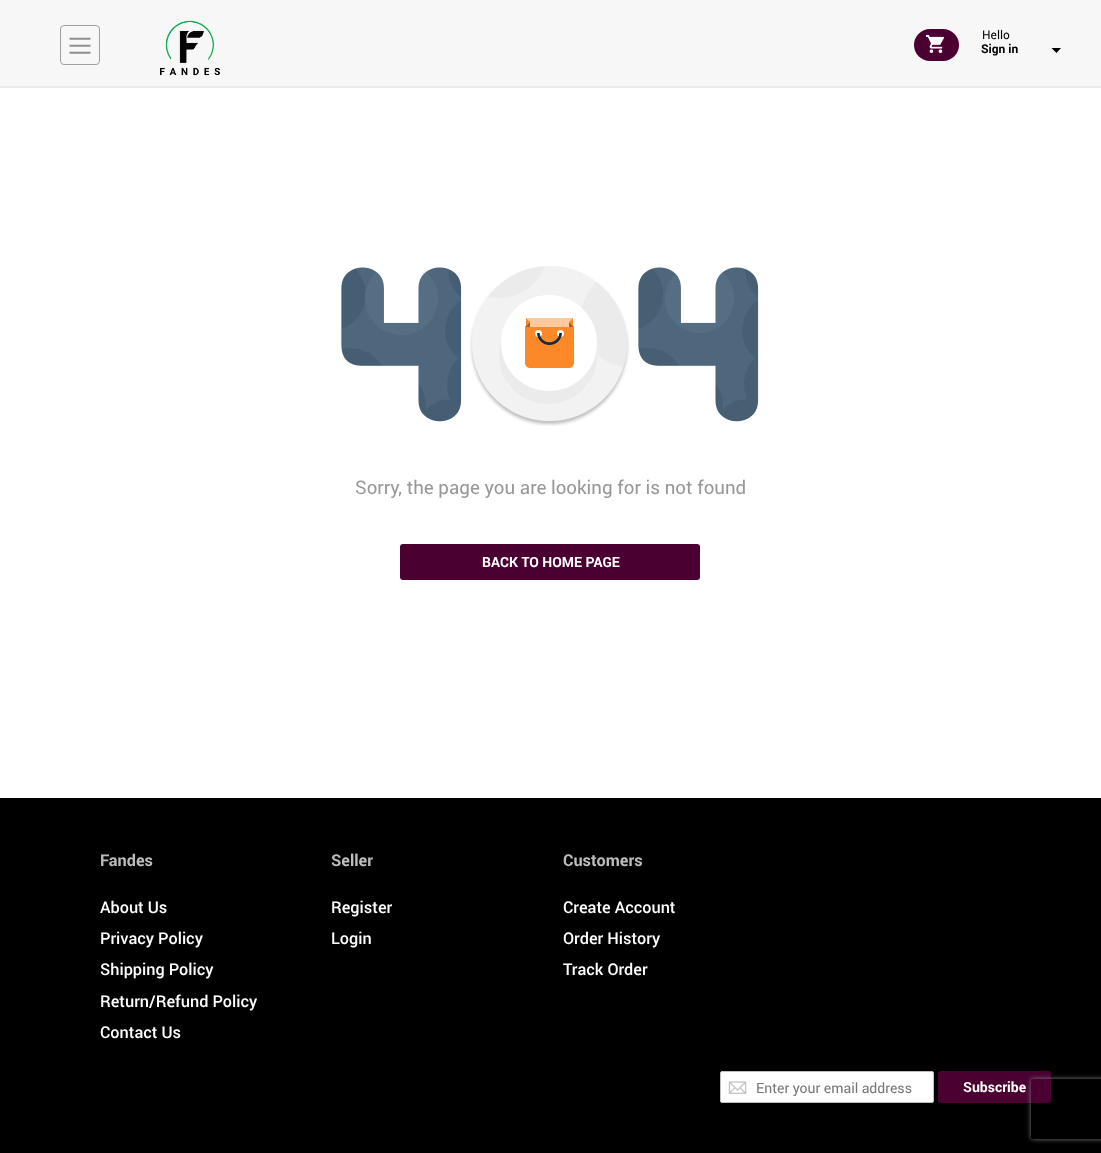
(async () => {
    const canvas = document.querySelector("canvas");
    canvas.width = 1101;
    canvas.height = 1153;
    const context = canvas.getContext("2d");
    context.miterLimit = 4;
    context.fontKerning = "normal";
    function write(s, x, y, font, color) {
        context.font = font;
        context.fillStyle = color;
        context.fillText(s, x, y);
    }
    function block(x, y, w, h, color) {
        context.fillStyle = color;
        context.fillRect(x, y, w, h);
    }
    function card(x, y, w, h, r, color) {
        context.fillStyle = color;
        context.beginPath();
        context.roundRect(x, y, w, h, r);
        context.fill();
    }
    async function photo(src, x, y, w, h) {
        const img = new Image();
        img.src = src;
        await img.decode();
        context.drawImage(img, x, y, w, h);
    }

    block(0, 0, 1101, 1153, "rgb(255, 255, 255)");
    block(0, 0, 1101, 86, "rgb(247, 247, 247)");
    context.fillStyle = "rgb(235, 235, 235)";
    context.filter = "blur(0.5px)";
    context.beginPath();
    context.rect(0, 86, 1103, 2);
    context.fill();
    context.filter = "none";
    context.beginPath();
    context.roundRect(60.5, 25.5, 39, 39, 3.5);
    context.strokeStyle = "rgb(159, 159, 159)";
    context.stroke();
    await photo("media/1.png", 69, 37, 22, 17);
    await photo("media/2.png", 160, 20, 60, 56);
    card(914, 29, 45, 32, 16, "rgb(75, 0, 50)");
    await photo("media/3.png", 926, 35, 18, 18);
    write("Hello", 982, 39, "12px Roboto", "rgb(0, 0, 0)");
    write("Sign in", 981, 53, "bold 12px Roboto", "rgb(0, 0, 0)");
    context.beginPath();
    context.moveTo(1051.5, 48);
    context.lineTo(1056.5, 53);
    context.lineTo(1061, 48);
    context.closePath();
    context.fill();
    await photo("media/4.png", 341, 266, 418, 160);
    write("Sorry, the page you are looking for is not found", 355, 494, "18.75px Roboto", "rgb(151, 151, 151)");
    card(400, 544, 300, 36, 3, "rgb(75, 0, 50)");
    write("BACK TO HOME PAGE", 482, 567, "bold 14px Roboto", "rgb(255, 255, 255)");
    block(0, 798, 1101, 355, "rgb(0, 0, 0)");
    write("Fandes", 100, 866, "bold 16.25px Roboto", "rgb(189, 189, 189)");
    write("About Us", 100, 913, "500 16.25px Roboto", "rgb(255, 255, 255)");
    write("Privacy Policy", 100, 944, "500 16.25px Roboto", "rgb(255, 255, 255)");
    write("Shipping Policy", 100, 975, "500 16.25px Roboto", "rgb(255, 255, 255)");
    write("Return/Refund Policy", 100, 1007, "500 16.25px Roboto", "rgb(255, 255, 255)");
    write("Contact Us", 100, 1038, "500 16.25px Roboto", "rgb(255, 255, 255)");
    write("Seller", 331, 866, "bold 16.25px Roboto", "rgb(189, 189, 189)");
    write("Register", 331, 913, "500 16.25px Roboto", "rgb(255, 255, 255)");
    write("Login", 331, 944, "500 16.25px Roboto", "rgb(255, 255, 255)");
    write("Customers", 563, 866, "bold 16.25px Roboto", "rgb(189, 189, 189)");
    write("Create Account", 563, 913, "500 16.25px Roboto", "rgb(255, 255, 255)");
    write("Order History", 563, 944, "500 16.25px Roboto", "rgb(255, 255, 255)");
    write("Track Order", 563, 975, "500 16.25px Roboto", "rgb(255, 255, 255)");
    context.beginPath();
    context.roundRect(720.5, 1071.5, 213, 31, 1.5);
    context.fill();
    context.strokeStyle = "rgb(191, 191, 191)";
    context.stroke();
    await photo("media/5.png", 728, 1081, 19, 13);
    write("Enter your email address", 756, 1093, "14px Roboto", "rgb(117, 117, 117)");
    card(938, 1071, 113, 32, 3, "rgb(75, 0, 50)");
    write("Subscribe", 963, 1092, "bold 14px Roboto", "rgb(255, 255, 255)");
    context.save();
    context.beginPath();
    context.moveTo(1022, 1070);
    context.lineTo(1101, 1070);
    context.lineTo(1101, 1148);
    context.lineTo(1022, 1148);
    context.closePath();
    context.moveTo(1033, 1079);
    context.lineTo(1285, 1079);
    context.bezierCurveTo(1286, 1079, 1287, 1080, 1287, 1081);
    context.lineTo(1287, 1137);
    context.bezierCurveTo(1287, 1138, 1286, 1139, 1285, 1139);
    context.lineTo(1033, 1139);
    context.bezierCurveTo(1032, 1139, 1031, 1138, 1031, 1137);
    context.lineTo(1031, 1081);
    context.bezierCurveTo(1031, 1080, 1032, 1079, 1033, 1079);
    context.closePath();
    context.clip("evenodd");
    context.fillStyle = "rgb(128, 128, 128)";
    context.filter = "blur(2.5px)";
    context.beginPath();
    context.roundRect(1031, 1079, 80, 60, 2);
    context.fill();
    context.filter = "none";
    context.restore();
})();
